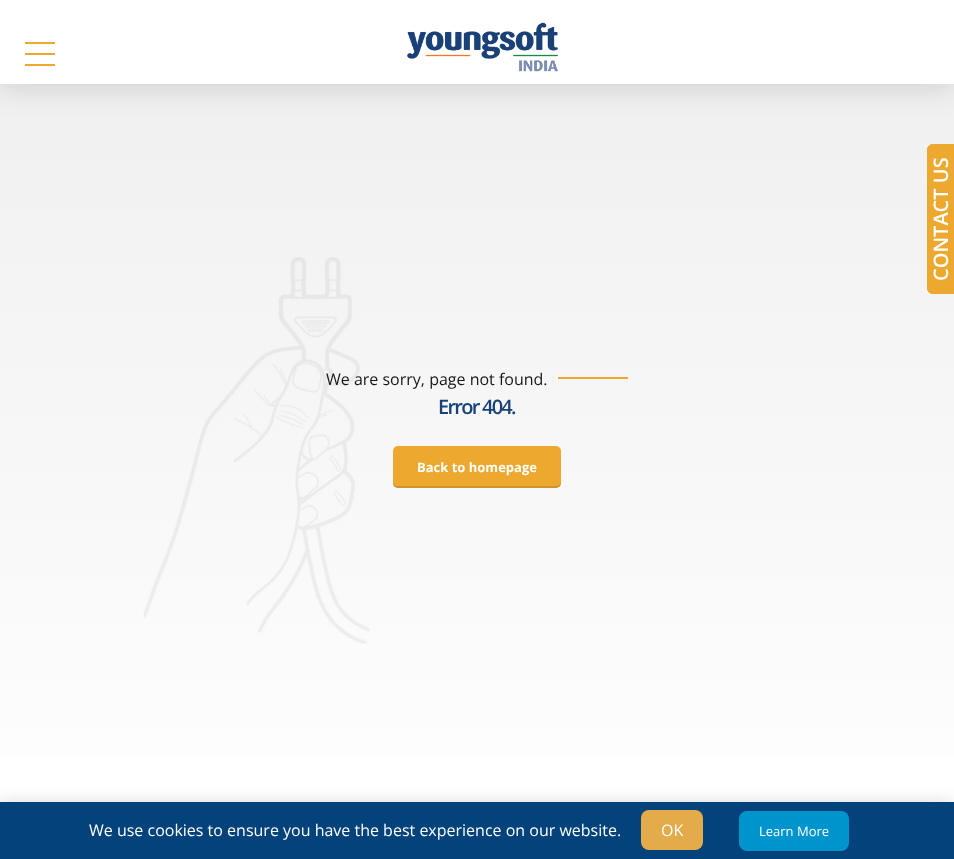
(async () => {
    const canvas = document.querySelector("canvas");
    canvas.width = 954;
    canvas.height = 859;
    const context = canvas.getContext("2d");
    context.miterLimit = 4;
    context.fontKerning = "normal";
    function write(s, x, y, font, color) {
        context.font = font;
        context.fillStyle = color;
        context.fillText(s, x, y);
    }
    function block(x, y, w, h, color) {
        context.fillStyle = color;
        context.fillRect(x, y, w, h);
    }
    function card(x, y, w, h, r, color) {
        context.fillStyle = color;
        context.beginPath();
        context.roundRect(x, y, w, h, r);
        context.fill();
    }
    async function photo(src, x, y, w, h) {
        const img = new Image();
        img.src = src;
        await img.decode();
        context.drawImage(img, x, y, w, h);
    }
    let gradient;

    block(0, 0, 954, 859, "rgb(255, 255, 255)");
    await photo("media/2.png", 143, 257, 229, 387);
    gradient = context.createLinearGradient(477, 0, 477, 859);
    gradient.addColorStop(0, "rgba(222, 222, 222, 0.5)");
    gradient.addColorStop(1, "rgba(255, 255, 255, 0.5)");
    context.fillStyle = gradient;
    context.fillRect(0, 84, 954, 671);
    context.fillStyle = "rgba(0, 0, 0, 0.15)";
    context.filter = "blur(15px)";
    context.beginPath();
    context.rect(0, 2, 954, 84);
    context.fill();
    context.filter = "none";
    block(0, 0, 954, 84, "rgb(255, 255, 255)");
    block(25, 42, 30, 2, "rgb(237, 168, 47)");
    block(25, 53, 30, 2, "rgb(237, 168, 47)");
    block(25, 64, 30, 2, "rgb(237, 168, 47)");
    await photo("media/1.png", 407, 22, 151, 50);
    context.beginPath();
    context.moveTo(927, 288);
    context.lineTo(927, 150);
    context.bezierCurveTo(927, 147, 930, 144, 933, 144);
    context.lineTo(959, 144);
    context.bezierCurveTo(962, 144, 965, 147, 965, 150);
    context.lineTo(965, 288);
    context.bezierCurveTo(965, 291, 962, 294, 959, 294);
    context.lineTo(933, 294);
    context.bezierCurveTo(930, 294, 927, 291, 927, 288);
    context.closePath();
    context.fill();
    context.beginPath();
    context.moveTo(927, 288);
    context.lineTo(927, 150);
    context.bezierCurveTo(927, 147, 930, 144, 933, 144);
    context.lineTo(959, 144);
    context.bezierCurveTo(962, 144, 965, 147, 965, 150);
    context.lineTo(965, 288);
    context.bezierCurveTo(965, 291, 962, 294, 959, 294);
    context.lineTo(933, 294);
    context.bezierCurveTo(930, 294, 927, 291, 927, 288);
    context.closePath();
    context.moveTo(928, 288);
    context.lineTo(928, 150);
    context.bezierCurveTo(928, 147, 930, 145, 933, 145);
    context.lineTo(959, 145);
    context.bezierCurveTo(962, 145, 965, 147, 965, 150);
    context.lineTo(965, 288);
    context.bezierCurveTo(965, 291, 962, 293, 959, 293);
    context.lineTo(933, 293);
    context.bezierCurveTo(930, 293, 928, 291, 928, 288);
    context.closePath();
    context.fill("evenodd");
    context.font = "600 20px Open Sans";
    context.fillStyle = "rgb(255, 255, 255)";
    context.save();
    context.translate(948, 281);
    context.rotate(-90 * Math.PI / 180);
    context.fillText("CONTACT US", 0, 0);
    context.restore();
    write("We are sorry, page not found.", 326, 385, "16px Open Sans", "rgb(24, 24, 24)");
    block(558, 377, 70, 2, "rgb(237, 168, 47)");
    context.letterSpacing = "-1.75px";
    write("Error 404.", 438, 414, "600 20px Open Sans", "rgb(25, 67, 120)");
    card(393, 446, 168, 42, 5, "rgb(237, 168, 47)");
    context.fillStyle = "rgba(24, 24, 24, 0.15)";
    context.beginPath();
    context.moveTo(393, 481);
    context.lineTo(393, 483);
    context.bezierCurveTo(393, 486, 395, 488, 398, 488);
    context.lineTo(556, 488);
    context.bezierCurveTo(559, 488, 561, 486, 561, 483);
    context.lineTo(561, 481);
    context.bezierCurveTo(561, 484, 559, 486, 556, 486);
    context.lineTo(398, 486);
    context.bezierCurveTo(395, 486, 393, 484, 393, 481);
    context.closePath();
    context.fill();
    context.letterSpacing = "0px";
    write("Back to homepage", 417, 472, "bold 13px Open Sans", "rgb(255, 255, 255)");
    context.fillStyle = "rgba(0, 0, 0, 0.29)";
    context.filter = "blur(10px)";
    context.beginPath();
    context.rect(0, 808, 954, 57);
    context.fill();
    context.filter = "none";
    block(0, 802, 954, 57, "rgb(3, 66, 122)");
    write("We use cookies to ensure you have the best experience on our website.", 89, 836, "16px Open Sans", "rgb(255, 255, 255)");
    card(641, 810, 62, 40, 8, "rgb(227, 171, 74)");
    write("OK", 661, 836, "16px Open Sans", "rgb(255, 255, 255)");
    card(739, 811, 110, 40, 8, "rgb(0, 148, 205)");
    write("Learn More", 759, 836, "13px Open Sans", "rgb(255, 255, 255)");
})();
